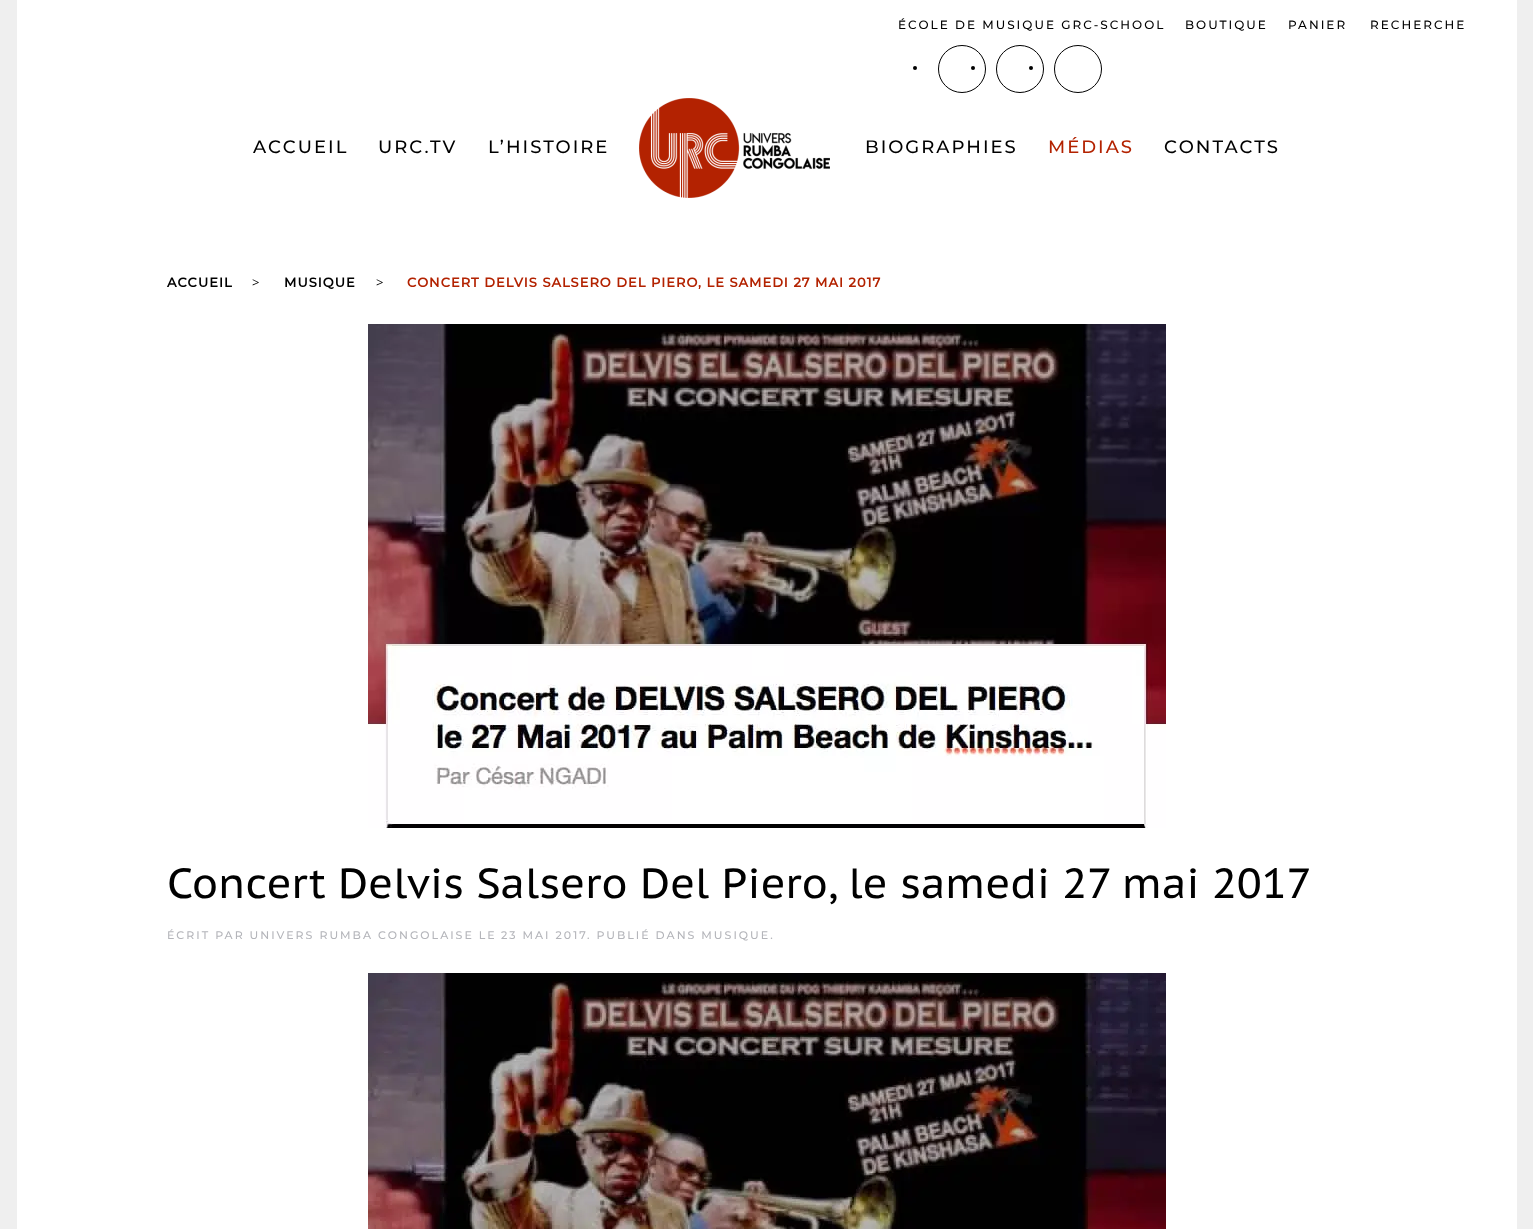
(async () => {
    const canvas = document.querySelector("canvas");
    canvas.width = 1533;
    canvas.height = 1229;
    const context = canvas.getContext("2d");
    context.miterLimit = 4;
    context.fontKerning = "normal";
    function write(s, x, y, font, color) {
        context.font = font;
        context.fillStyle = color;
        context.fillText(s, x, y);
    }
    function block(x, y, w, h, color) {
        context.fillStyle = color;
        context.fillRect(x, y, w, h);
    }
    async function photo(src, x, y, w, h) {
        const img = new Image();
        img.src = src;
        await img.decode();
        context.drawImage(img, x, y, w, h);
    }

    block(0, 0, 1533, 1229, "rgb(239, 239, 239)");
    block(17, 0, 1500, 1229, "rgb(255, 255, 255)");
    context.letterSpacing = "2px";
    write("ÉCOLE DE MUSIQUE GRC-SCHOOL", 898, 29, "100 12px Montserrat", "rgb(0, 0, 0)");
    write("BOUTIQUE", 1185, 29, "100 12px Montserrat", "rgb(0, 0, 0)");
    write("PANIER", 1288, 29, "100 12px Montserrat", "rgb(0, 0, 0)");
    write("RECHERCHE", 1370, 29, "100 12px Montserrat", "rgb(0, 0, 0)");
    context.beginPath();
    context.arc(915, 68, 2, 0, Math.PI * 2);
    context.fill();
    context.beginPath();
    context.arc(962, 69, 23.5, 0, Math.PI * 2);
    context.strokeStyle = "rgb(0, 0, 0)";
    context.stroke();
    context.beginPath();
    context.arc(973, 68, 2, 0, Math.PI * 2);
    context.fill();
    context.beginPath();
    context.arc(1020, 69, 23.5, 0, Math.PI * 2);
    context.stroke();
    context.beginPath();
    context.arc(1031, 68, 2, 0, Math.PI * 2);
    context.fill();
    context.beginPath();
    context.arc(1078, 69, 23.5, 0, Math.PI * 2);
    context.stroke();
    write("ACCUEIL", 253, 153, "100 18px Montserrat", "rgb(0, 0, 0)");
    write("URC.TV", 378, 153, "100 18px Montserrat", "rgb(0, 0, 0)");
    write("L’HISTOIRE", 488, 153, "100 18px Montserrat", "rgb(0, 0, 0)");
    await photo("media/1.png", 639, 98, 191, 100);
    write("BIOGRAPHIES", 865, 153, "100 18px Montserrat", "rgb(0, 0, 0)");
    write("MÉDIAS", 1048, 153, "100 18px Montserrat", "rgb(179, 34, 0)");
    write("CONTACTS", 1164, 153, "100 18px Montserrat", "rgb(0, 0, 0)");
    context.letterSpacing = "1px";
    write("ACCUEIL", 167, 287, "bold 13px Montserrat", "rgb(0, 0, 0)");
    context.letterSpacing = "0px";
    write(">", 252, 287, "13px Open Sans", "rgb(0, 0, 0)");
    context.letterSpacing = "1px";
    write("MUSIQUE", 284, 287, "bold 13px Montserrat", "rgb(0, 0, 0)");
    context.letterSpacing = "0px";
    write(">", 376, 287, "13px Open Sans", "rgb(0, 0, 0)");
    context.letterSpacing = "1px";
    write("CONCERT DELVIS SALSERO DEL PIERO, LE SAMEDI 27 MAI 2017", 407, 287, "bold 13px Montserrat", "rgb(179, 34, 0)");
    await photo("media/2.png", 368, 324, 798, 504);
    context.letterSpacing = "0px";
    write("Concert Delvis Salsero Del Piero, le samedi 27 mai 2017", 167, 898, "42px PT Sans Caption", "rgb(0, 0, 0)");
    context.letterSpacing = "2px";
    write("ÉCRIT PAR UNIVERS RUMBA CONGOLAISE LE", 167, 939, "100 11px Montserrat", "rgb(180, 181, 186)");
    write("23 MAI 2017", 501, 939, "100 11px Montserrat", "rgb(180, 181, 186)");
    write(". PUBLIÉ DANS MUSIQUE.", 587, 939, "100 11px Montserrat", "rgb(180, 181, 186)");
    await photo("media/3.png", 368, 973, 798, 256);
})();
